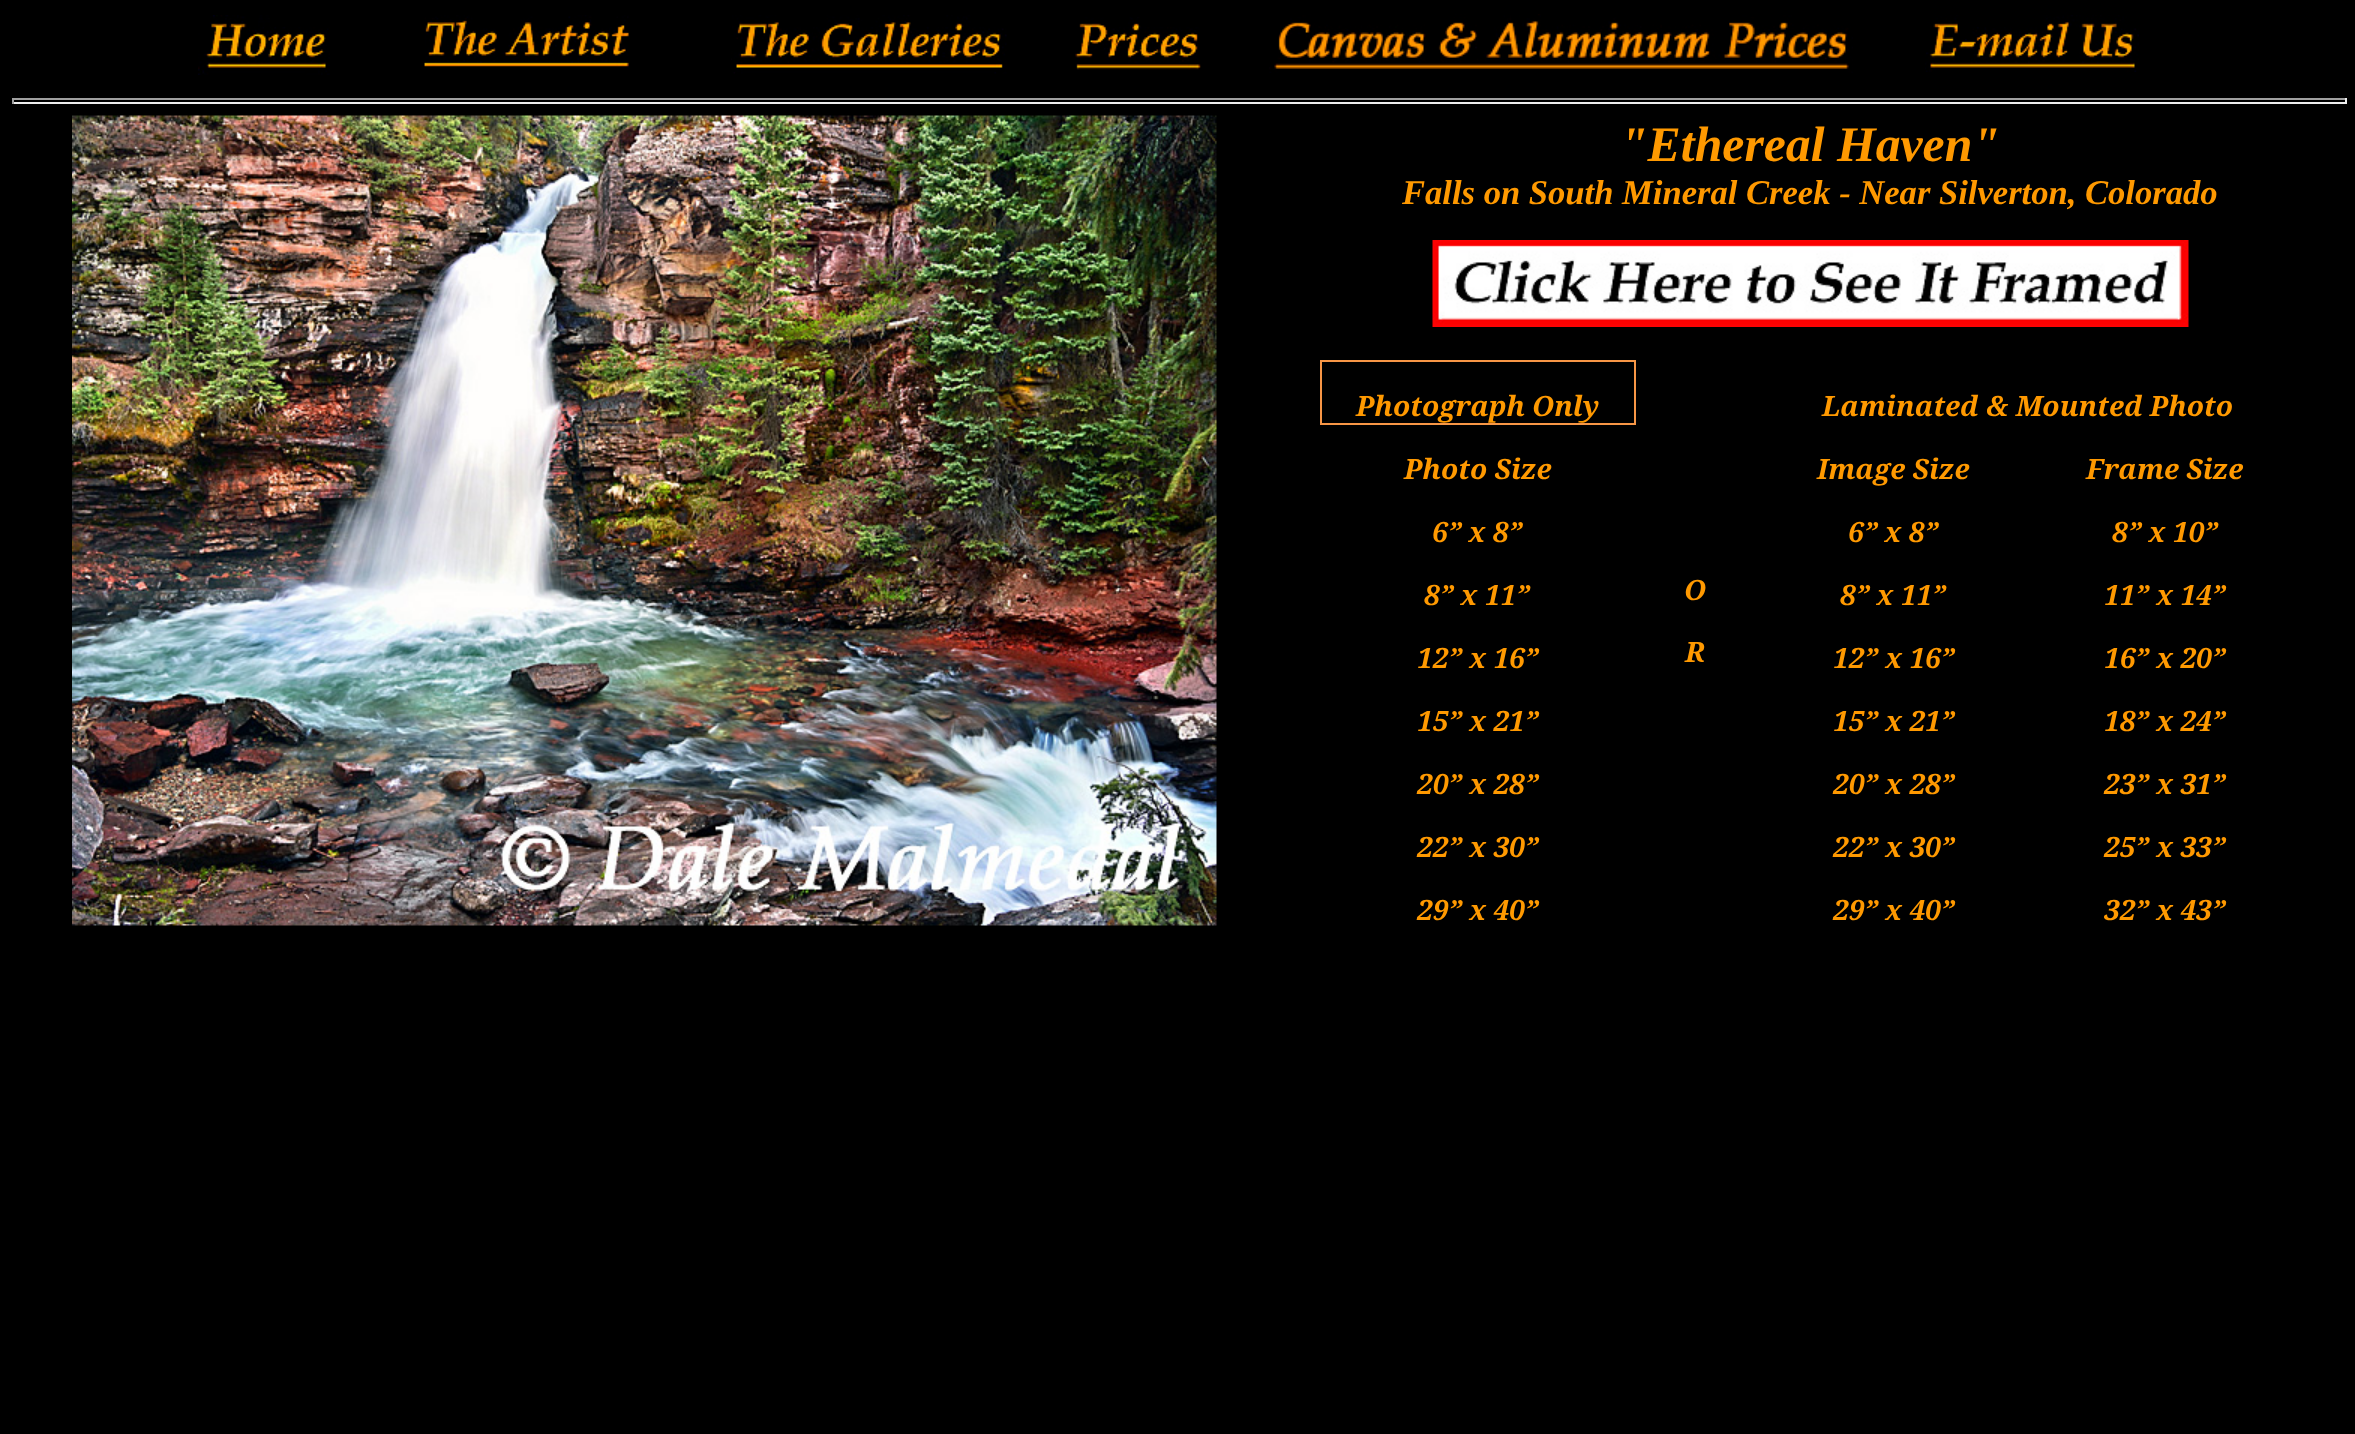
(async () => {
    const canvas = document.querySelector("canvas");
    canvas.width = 2355;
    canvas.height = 1434;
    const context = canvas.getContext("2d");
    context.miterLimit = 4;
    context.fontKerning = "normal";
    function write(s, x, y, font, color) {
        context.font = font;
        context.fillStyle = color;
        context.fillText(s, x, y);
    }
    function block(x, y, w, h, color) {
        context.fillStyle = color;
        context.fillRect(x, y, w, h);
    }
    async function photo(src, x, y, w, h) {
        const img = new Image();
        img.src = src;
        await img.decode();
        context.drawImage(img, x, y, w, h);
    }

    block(0, 0, 2355, 1434, "rgb(0, 0, 0)");
    await photo("media/1.png", 198, 15, 132, 60);
    await photo("media/2.png", 424, 15, 205, 53);
    await photo("media/3.png", 731, 15, 276, 59);
    await photo("media/4.png", 1075, 17, 126, 53);
    await photo("media/5.png", 1269, 14, 584, 59);
    await photo("media/6.png", 1925, 15, 214, 57);
    block(12, 98, 2334, 2, "rgb(159, 159, 159)");
    block(2345, 98, 2, 6, "rgb(238, 238, 238)");
    block(12, 102, 2334, 2, "rgb(238, 238, 238)");
    block(12, 98, 2, 6, "rgb(159, 159, 159)");
    await photo("media/7.png", 72, 115, 1145, 811);
    write("\"Ethereal Haven\"", 1620, 161, "italic bold 49.75px Liberation Serif", "rgb(255, 153, 0)");
    write("Falls on South Mineral Creek - Near Silverton, Colorado", 1402, 204, "italic bold 34.6px Liberation Serif", "rgb(255, 153, 0)");
    await photo("media/8.png", 1432, 240, 757, 87);
    block(1320, 360, 315, 2, "rgb(247, 150, 70)");
    block(1634, 360, 2, 65, "rgb(247, 150, 70)");
    block(1320, 423, 315, 2, "rgb(247, 150, 70)");
    block(1320, 360, 2, 65, "rgb(247, 150, 70)");
    write("Photograph Only", 1356, 416, "italic bold 28px Noto Serif", "rgb(255, 153, 0)");
    write("Laminated & Mounted Photo", 1822, 416, "italic bold 28px Noto Serif", "rgb(255, 153, 0)");
    write("O", 1684, 600, "italic bold 28px Noto Serif", "rgb(255, 153, 0)");
    write("R", 1685, 662, "italic bold 28px Noto Serif", "rgb(255, 153, 0)");
    write("Photo Size", 1404, 479, "italic bold 28px Noto Serif", "rgb(255, 153, 0)");
    write("Image Size", 1817, 479, "italic bold 28px Noto Serif", "rgb(255, 153, 0)");
    write("Frame Size", 2086, 479, "italic bold 28px Noto Serif", "rgb(255, 153, 0)");
    write("6” x 8”", 1432, 542, "italic bold 28px Noto Serif", "rgb(255, 153, 0)");
    write("6” x 8”", 1848, 542, "italic bold 28px Noto Serif", "rgb(255, 153, 0)");
    write("8” x 10”", 2112, 542, "italic bold 28px Noto Serif", "rgb(255, 153, 0)");
    write("8” x 11”", 1424, 605, "italic bold 28px Noto Serif", "rgb(255, 153, 0)");
    write("8” x 11”", 1840, 605, "italic bold 28px Noto Serif", "rgb(255, 153, 0)");
    write("11” x 14”", 2104, 605, "italic bold 28px Noto Serif", "rgb(255, 153, 0)");
    write("12” x 16”", 1417, 668, "italic bold 28px Noto Serif", "rgb(255, 153, 0)");
    write("12” x 16”", 1833, 668, "italic bold 28px Noto Serif", "rgb(255, 153, 0)");
    write("16” x 20”", 2104, 668, "italic bold 28px Noto Serif", "rgb(255, 153, 0)");
    write("15” x 21”", 1417, 731, "italic bold 28px Noto Serif", "rgb(255, 153, 0)");
    write("15” x 21”", 1833, 731, "italic bold 28px Noto Serif", "rgb(255, 153, 0)");
    write("18” x 24”", 2104, 731, "italic bold 28px Noto Serif", "rgb(255, 153, 0)");
    write("20” x 28”", 1417, 794, "italic bold 28px Noto Serif", "rgb(255, 153, 0)");
    write("20” x 28”", 1833, 794, "italic bold 28px Noto Serif", "rgb(255, 153, 0)");
    write("23” x 31”", 2104, 794, "italic bold 28px Noto Serif", "rgb(255, 153, 0)");
    write("22” x 30”", 1417, 857, "italic bold 28px Noto Serif", "rgb(255, 153, 0)");
    write("22” x 30”", 1833, 857, "italic bold 28px Noto Serif", "rgb(255, 153, 0)");
    write("25” x 33”", 2104, 857, "italic bold 28px Noto Serif", "rgb(255, 153, 0)");
    write("29” x 40”", 1417, 920, "italic bold 28px Noto Serif", "rgb(255, 153, 0)");
    write("29” x 40”", 1833, 920, "italic bold 28px Noto Serif", "rgb(255, 153, 0)");
    write("32” x 43”", 2104, 920, "italic bold 28px Noto Serif", "rgb(255, 153, 0)");
})();
